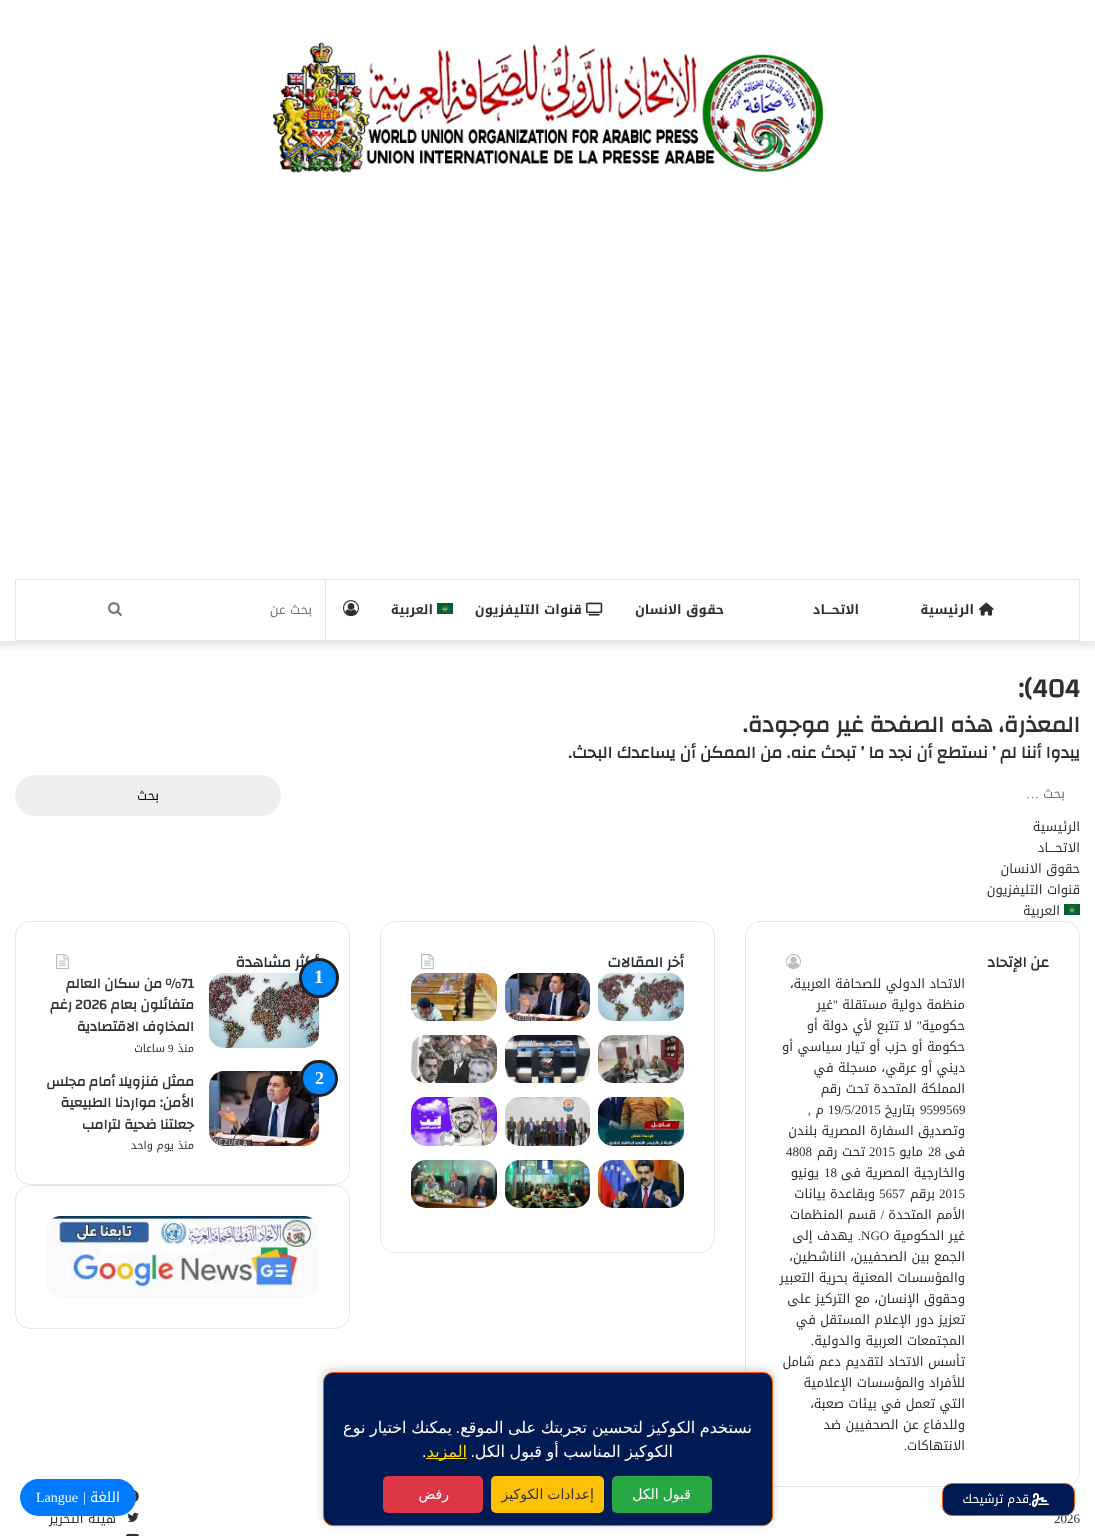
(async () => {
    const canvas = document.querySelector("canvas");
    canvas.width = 1095;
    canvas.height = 1536;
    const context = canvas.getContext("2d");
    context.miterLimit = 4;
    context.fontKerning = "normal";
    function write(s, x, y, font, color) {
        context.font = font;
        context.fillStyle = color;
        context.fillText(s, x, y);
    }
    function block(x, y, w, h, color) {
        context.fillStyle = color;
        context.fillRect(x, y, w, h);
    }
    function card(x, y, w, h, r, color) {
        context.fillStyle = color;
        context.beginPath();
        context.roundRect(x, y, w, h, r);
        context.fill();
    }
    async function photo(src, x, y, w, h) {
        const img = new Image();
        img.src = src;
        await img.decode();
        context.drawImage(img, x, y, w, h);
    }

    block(0, 0, 1095, 1536, "rgb(255, 255, 255)");
    context.save();
    context.beginPath();
    context.rect(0, 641, 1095, 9);
    context.clip();
    context.fillStyle = "rgba(0, 0, 0, 0.1)";
    context.filter = "blur(5px)";
    context.beginPath();
    context.rect(-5, -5, 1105, 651);
    context.fill();
    context.filter = "none";
    context.restore();
    await photo("media/1.png", 273, 42, 551, 131);
    context.strokeStyle = "rgb(230, 230, 230)";
    context.strokeRect(15.5, 579.5, 1064, 61);
    await photo("media/2.png", 979, 602, 15, 14);
    context.direction = "rtl";
    write("الرئيسية", 974, 614, "bold 13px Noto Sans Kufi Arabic", "rgb(44, 47, 52)");
    write("الاتحـــاد", 859, 614, "bold 13px Noto Sans Kufi Arabic", "rgb(44, 47, 52)");
    write("حقوق الانسان", 724, 614, "bold 13px Noto Sans Kufi Arabic", "rgb(44, 47, 52)");
    await photo("media/3.png", 586, 602, 17, 14);
    write("قنوات التليفزيون", 582, 614, "bold 13px Noto Sans Kufi Arabic", "rgb(44, 47, 52)");
    await photo("media/4.png", 437, 603, 16, 11);
    write("العربية", 433, 614, "bold 13px Noto Sans Kufi Arabic", "rgb(44, 47, 52)");
    await photo("media/5.png", 343, 600, 16, 17);
    block(325, 580, 1, 60, "rgb(230, 230, 230)");
    write("بحث عن", 312, 614, "13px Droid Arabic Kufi", "rgb(117, 117, 117)");
    await photo("media/6.png", 108, 602, 14, 14);
    context.direction = "ltr";
    write(":(404", 1018, 697, "bold 27px Changa", "rgb(44, 47, 52)");
    context.direction = "rtl";
    write("المعذرة، هذه الصفحة غير موجودة.", 1080, 732, "bold 23px Changa", "rgb(44, 47, 52)");
    write("يبدوا أننا لم ’ نستطع أن نجد ما ’ تبحث عنه. من الممكن أن يساعدك البحث.", 1080, 758, "bold 17px Changa", "rgb(44, 47, 52)");
    write("بحث", 1065, 798, "13px Droid Arabic Kufi", "rgb(117, 117, 117)");
    write("…", 1039, 798, "13px Liberation Serif", "rgb(117, 117, 117)");
    card(15, 775, 266, 41, 20.5, "rgb(239, 239, 239)");
    write("بحث", 159, 800, "13px Droid Arabic Kufi", "rgb(0, 0, 0)");
    write("الرئيسية", 1080, 831, "13px Droid Arabic Kufi", "rgb(51, 51, 51)");
    write("الاتحـــاد", 1080, 852, "13px Droid Arabic Kufi", "rgb(51, 51, 51)");
    write("حقوق الانسان", 1080, 873, "13px Droid Arabic Kufi", "rgb(51, 51, 51)");
    write("قنوات التليفزيون", 1080, 894, "13px Droid Arabic Kufi", "rgb(51, 51, 51)");
    await photo("media/4.png", 1064, 904, 16, 11);
    write("العربية", 1060, 915, "13px Droid Arabic Kufi", "rgb(51, 51, 51)");
    context.beginPath();
    context.roundRect(745.5, 921.5, 334, 565, 14.5);
    context.stroke();
    write("عن الإتحاد", 1049, 967, "bold 15px Changa", "rgb(44, 47, 52)");
    await photo("media/7.png", 786, 954, 15, 15);
    write("الاتحاد الدولي للصحافة العربية،", 965, 988, "13px Droid Arabic Kufi", "rgb(44, 47, 52)");
    write("منظمة دولية مستقلة", 965, 1009, "13px Droid Arabic Kufi", "rgb(44, 47, 52)");
    write("\"", 838, 1009, "13px Liberation Serif", "rgb(44, 47, 52)");
    write("غير", 833, 1009, "13px Droid Arabic Kufi", "rgb(44, 47, 52)");
    write("حكومية", 965, 1030, "13px Droid Arabic Kufi", "rgb(44, 47, 52)");
    write("\"", 922, 1030, "13px Liberation Serif", "rgb(44, 47, 52)");
    write("لا تتبع لأي دولة أو", 912, 1030, "13px Droid Arabic Kufi", "rgb(44, 47, 52)");
    write("حكومة أو حزب أو تيار سياسي أو", 965, 1051, "13px Droid Arabic Kufi", "rgb(44, 47, 52)");
    write("ديني أو عرقي، مسجلة في", 965, 1072, "13px Droid Arabic Kufi", "rgb(44, 47, 52)");
    write("المملكة المتحدة تحت رقم", 965, 1093, "13px Droid Arabic Kufi", "rgb(44, 47, 52)");
    context.direction = "ltr";
    write("9599569", 920, 1114, "13px Liberation Serif", "rgb(44, 47, 52)");
    context.direction = "rtl";
    write("بتاريخ", 915, 1114, "13px Droid Arabic Kufi", "rgb(44, 47, 52)");
    context.direction = "ltr";
    write("19/5/2015", 828, 1114, "13px Liberation Serif", "rgb(44, 47, 52)");
    context.direction = "rtl";
    write("م", 824, 1114, "13px Droid Arabic Kufi", "rgb(44, 47, 52)");
    write(",", 811, 1114, "13px Liberation Serif", "rgb(44, 47, 52)");
    write("وتصديق السفارة المصرية بلندن", 965, 1135, "13px Droid Arabic Kufi", "rgb(44, 47, 52)");
    write("فى", 965, 1156, "13px Droid Arabic Kufi", "rgb(44, 47, 52)");
    context.direction = "ltr";
    write("28", 928, 1156, "13px Liberation Serif", "rgb(44, 47, 52)");
    context.direction = "rtl";
    write("مايو", 923, 1156, "13px Droid Arabic Kufi", "rgb(44, 47, 52)");
    context.direction = "ltr";
    write("2015", 869, 1156, "13px Liberation Serif", "rgb(44, 47, 52)");
    context.direction = "rtl";
    write("تحت رقم", 865, 1156, "13px Droid Arabic Kufi", "rgb(44, 47, 52)");
    context.direction = "ltr";
    write("4808", 786, 1156, "13px Liberation Serif", "rgb(44, 47, 52)");
    context.direction = "rtl";
    write("والخارجية المصرية فى", 965, 1177, "13px Droid Arabic Kufi", "rgb(44, 47, 52)");
    context.direction = "ltr";
    write("18", 824, 1177, "13px Liberation Serif", "rgb(44, 47, 52)");
    context.direction = "rtl";
    write("يونيو", 819, 1177, "13px Droid Arabic Kufi", "rgb(44, 47, 52)");
    context.direction = "ltr";
    write("2015", 939, 1198, "13px Liberation Serif", "rgb(44, 47, 52)");
    context.direction = "rtl";
    write("برقم", 935, 1198, "13px Droid Arabic Kufi", "rgb(44, 47, 52)");
    context.direction = "ltr";
    write("5657", 879, 1198, "13px Liberation Serif", "rgb(44, 47, 52)");
    context.direction = "rtl";
    write("وبقاعدة بيانات", 875, 1198, "13px Droid Arabic Kufi", "rgb(44, 47, 52)");
    write("الأمم المتحدة", 965, 1219, "13px Droid Arabic Kufi", "rgb(44, 47, 52)");
    write("/", 884, 1219, "13px Liberation Serif", "rgb(44, 47, 52)");
    write("قسم المنظمات", 876, 1219, "13px Droid Arabic Kufi", "rgb(44, 47, 52)");
    write("غير الحكومية", 965, 1240, "13px Droid Arabic Kufi", "rgb(44, 47, 52)");
    context.direction = "ltr";
    write("NGO", 861, 1240, "13px Liberation Serif", "rgb(44, 47, 52)");
    context.direction = "rtl";
    write(".", 861, 1240, "13px Liberation Serif", "rgb(44, 47, 52)");
    write("يهدف إلى", 853, 1240, "13px Droid Arabic Kufi", "rgb(44, 47, 52)");
    write("الجمع بين الصحفيين، الناشطين،", 965, 1261, "13px Droid Arabic Kufi", "rgb(44, 47, 52)");
    write("والمؤسسات المعنية بحرية التعبير", 965, 1282, "13px Droid Arabic Kufi", "rgb(44, 47, 52)");
    write("وحقوق الإنسان، مع التركيز على", 965, 1303, "13px Droid Arabic Kufi", "rgb(44, 47, 52)");
    write("تعزيز دور الإعلام المستقل في", 965, 1324, "13px Droid Arabic Kufi", "rgb(44, 47, 52)");
    write("المجتمعات العربية والدولية", 965, 1345, "13px Droid Arabic Kufi", "rgb(44, 47, 52)");
    write(".", 814, 1345, "13px Liberation Serif", "rgb(44, 47, 52)");
    write("تأسس الاتحاد لتقديم دعم شامل", 965, 1366, "13px Droid Arabic Kufi", "rgb(44, 47, 52)");
    write("للأفراد والمؤسسات الإعلامية", 965, 1387, "13px Droid Arabic Kufi", "rgb(44, 47, 52)");
    write("التي تعمل في بيئات صعبة،", 965, 1408, "13px Droid Arabic Kufi", "rgb(44, 47, 52)");
    write("وللدفاع عن الصحفيين ضد", 965, 1429, "13px Droid Arabic Kufi", "rgb(44, 47, 52)");
    write("الانتهاكات", 965, 1450, "13px Droid Arabic Kufi", "rgb(44, 47, 52)");
    write(".", 907, 1450, "13px Liberation Serif", "rgb(44, 47, 52)");
    context.beginPath();
    context.roundRect(380.5, 921.5, 334, 331, 14.5);
    context.stroke();
    write("أخر المقالات", 684, 967, "bold 15px Changa", "rgb(44, 47, 52)");
    await photo("media/8.png", 421, 954, 13, 16);
    await photo("media/9.png", 598, 973, 86, 48);
    await photo("media/10.png", 505, 973, 85, 48);
    await photo("media/11.png", 411, 973, 86, 48);
    await photo("media/12.png", 598, 1035, 86, 48);
    await photo("media/13.png", 505, 1035, 85, 48);
    await photo("media/14.png", 411, 1035, 86, 48);
    await photo("media/15.png", 598, 1097, 86, 49);
    await photo("media/16.png", 505, 1097, 85, 49);
    await photo("media/17.png", 411, 1097, 86, 49);
    await photo("media/18.png", 598, 1160, 86, 48);
    await photo("media/19.png", 505, 1160, 85, 48);
    await photo("media/20.png", 411, 1160, 86, 48);
    context.beginPath();
    context.roundRect(15.5, 921.5, 334, 263, 14.5);
    context.stroke();
    write("أكثر مشاهدة", 319, 967, "bold 15px Changa", "rgb(44, 47, 52)");
    await photo("media/8.png", 56, 954, 13, 16);
    await photo("media/21.png", 209, 973, 110, 75);
    context.fillStyle = "rgb(0, 136, 255)";
    context.beginPath();
    context.arc(319, 978, 18.5, 0, Math.PI * 2);
    context.fill();
    context.strokeStyle = "rgb(31, 32, 36)";
    context.lineWidth = 3;
    context.stroke();
    context.direction = "ltr";
    write("1", 314, 983, "bold 19px Liberation Serif", "rgb(255, 255, 255)");
    write("%71", 165, 988, "bold 14px Changa", "rgb(51, 51, 51)");
    context.direction = "rtl";
    write("من سكان العالم", 162, 988, "bold 14px Changa", "rgb(51, 51, 51)");
    write("متفائلون بعام", 194, 1009, "bold 14px Changa", "rgb(51, 51, 51)");
    context.direction = "ltr";
    write("2026", 75, 1009, "bold 14px Changa", "rgb(51, 51, 51)");
    context.direction = "rtl";
    write("رغم", 72, 1009, "bold 14px Changa", "rgb(51, 51, 51)");
    write("المخاوف الاقتصادية", 194, 1031, "bold 14px Changa", "rgb(51, 51, 51)");
    write("منذ", 194, 1052, "11px Droid Arabic Kufi", "rgb(44, 47, 52)");
    context.direction = "ltr";
    write("9", 168, 1052, "11px Liberation Serif", "rgb(44, 47, 52)");
    context.direction = "rtl";
    write("ساعات", 165, 1052, "11px Droid Arabic Kufi", "rgb(44, 47, 52)");
    await photo("media/22.png", 209, 1071, 110, 75);
    context.fillStyle = "rgb(0, 136, 255)";
    context.beginPath();
    context.roundRect(301.5, 1061.5, 35, 34, 17);
    context.fill();
    context.stroke();
    context.direction = "ltr";
    write("2", 315, 1084, "bold 18px Liberation Serif", "rgb(255, 255, 255)");
    context.direction = "rtl";
    write("ممثل فنزويلا أمام مجلس", 194, 1086, "bold 14px Changa", "rgb(51, 51, 51)");
    write("الأمن: مواردنا الطبيعية", 194, 1107, "bold 14px Changa", "rgb(51, 51, 51)");
    write("جعلتنا ضحية لترامب", 194, 1129, "bold 14px Changa", "rgb(51, 51, 51)");
    write("منذ يوم واحد", 194, 1149, "11px Droid Arabic Kufi", "rgb(44, 47, 52)");
    context.beginPath();
    context.roundRect(15.5, 1185.5, 334, 143, 14.5);
    context.strokeStyle = "rgb(230, 230, 230)";
    context.lineWidth = 1;
    context.stroke();
    await photo("media/23.png", 46, 1216, 273, 82);
    context.direction = "ltr";
    write("2026", 1054, 1523, "13px Liberation Serif", "rgb(44, 47, 52)");
    await photo("media/24.png", 134, 1490, 5, 12);
    await photo("media/25.png", 127, 1512, 12, 11);
    await photo("media/26.png", 126, 1533, 13, 3);
    context.direction = "rtl";
    write("هيئة التحرير", 116, 1523, "13px Droid Arabic Kufi", "rgb(51, 51, 51)");
    context.fillStyle = "rgb(0, 27, 84)";
    context.beginPath();
    context.roundRect(942.5, 1483.5, 132, 32, 9.5);
    context.fill();
    context.strokeStyle = "rgb(244, 92, 0)";
    context.stroke();
    await photo("media/27.png", 1029, 1493, 20, 14);
    write("قدم ترشيحك", 1029, 1503, "12px Droid Arabic Kufi", "rgb(255, 255, 255)");
    context.fillStyle = "rgba(0, 0, 0, 0.2)";
    context.filter = "blur(5px)";
    context.beginPath();
    context.roundRect(323, 1370, 450, 154, 10);
    context.fill();
    context.filter = "none";
    context.fillStyle = "rgb(0, 27, 84)";
    context.beginPath();
    context.roundRect(323.5, 1372.5, 449, 153, 9.5);
    context.fill();
    context.stroke();
    context.wordSpacing = "-0.5px";
    write("نستخدم الكوكيز لتحسين تجربتك على الموقع", 752, 1433, "16px DejaVu Sans", "rgb(255, 255, 255)");
    context.wordSpacing = "0px";
    write(".", 460, 1433, "16px Liberation Sans", "rgb(255, 255, 255)");
    context.wordSpacing = "-0.5px";
    write("يمكنك اختيار نوع", 452, 1433, "16px DejaVu Sans", "rgb(255, 255, 255)");
    write("الكوكيز المناسب أو قبول الكل", 673, 1457, "16px DejaVu Sans", "rgb(255, 255, 255)");
    context.wordSpacing = "0px";
    write(".", 475, 1457, "16px Liberation Sans", "rgb(255, 255, 255)");
    block(426, 1458, 41, 1, "rgb(255, 215, 0)");
    write("المزيد", 467, 1457, "16px DejaVu Sans", "rgb(255, 215, 0)");
    context.direction = "ltr";
    write(".", 422, 1457, "16px Liberation Sans", "rgb(255, 255, 255)");
    card(612, 1476, 100, 37, 5, "rgb(40, 167, 69)");
    context.wordSpacing = "-0.5px";
    context.direction = "rtl";
    write("قبول الكل", 691, 1499, "14px DejaVu Sans", "rgb(255, 255, 255)");
    card(491, 1476, 113, 37, 5, "rgb(255, 193, 7)");
    write("إعدادات الكوكيز", 594, 1499, "14px DejaVu Sans", "rgb(51, 51, 51)");
    card(383, 1476, 100, 37, 5, "rgb(220, 53, 69)");
    context.wordSpacing = "0px";
    write("رفض", 449, 1499, "14px DejaVu Sans", "rgb(255, 255, 255)");
    card(20, 1479, 116, 37, 18.5, "rgb(0, 123, 255)");
    write("اللغة", 120, 1502, "14px Droid Arabic Kufi", "rgb(255, 255, 255)");
    write("|", 86, 1502, "14px Liberation Serif", "rgb(255, 255, 255)");
    context.direction = "ltr";
    write("Langue", 36, 1502, "14px Liberation Serif", "rgb(255, 255, 255)");
})();
